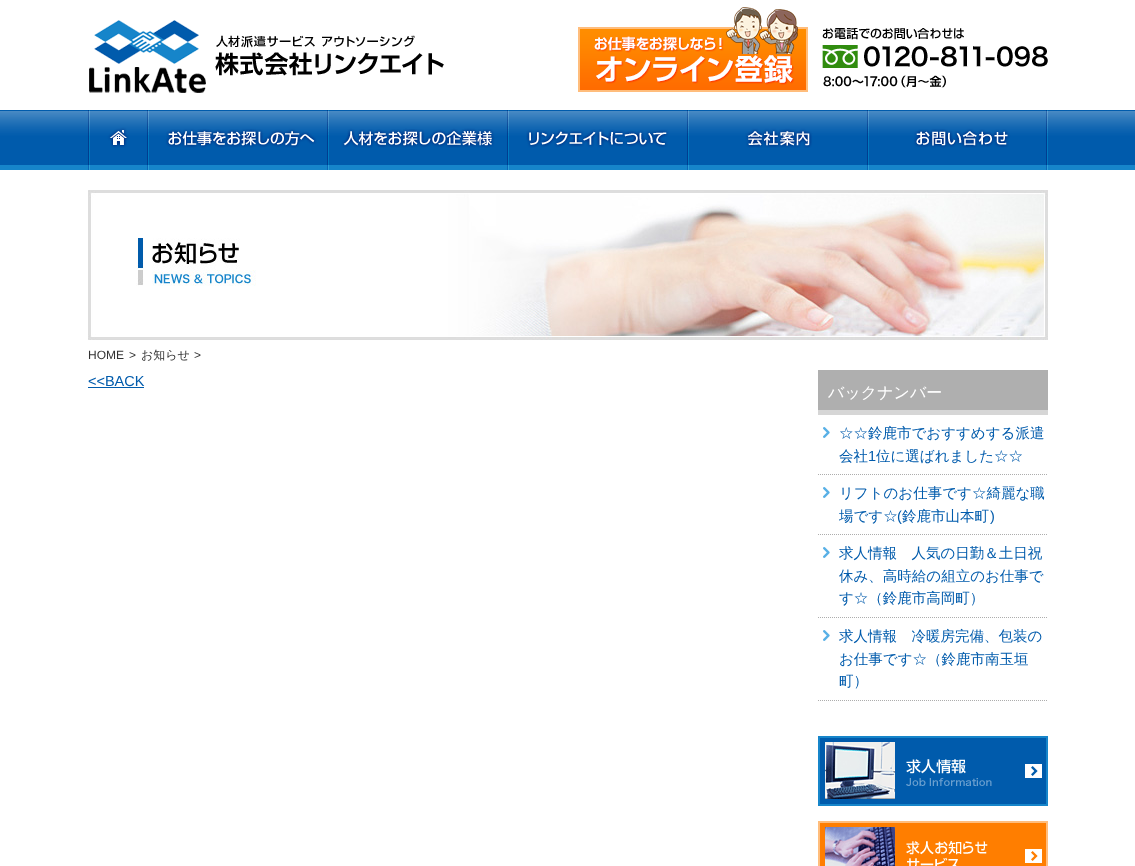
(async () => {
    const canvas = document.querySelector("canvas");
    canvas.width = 1135;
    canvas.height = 866;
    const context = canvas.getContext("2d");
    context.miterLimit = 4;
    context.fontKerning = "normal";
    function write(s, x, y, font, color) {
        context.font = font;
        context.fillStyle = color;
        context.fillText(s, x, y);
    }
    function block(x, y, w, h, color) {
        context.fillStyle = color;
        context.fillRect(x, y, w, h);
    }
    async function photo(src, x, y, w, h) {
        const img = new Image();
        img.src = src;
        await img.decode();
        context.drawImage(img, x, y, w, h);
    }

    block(0, 0, 1135, 866, "rgb(255, 255, 255)");
    await photo("media/1.png", 0, 110, 1135, 60);
    await photo("media/2.png", 89, 20, 355, 73);
    await photo("media/3.png", 578, 7, 230, 85);
    await photo("media/4.png", 822, 28, 226, 60);
    await photo("media/5.png", 88, 110, 60, 60);
    await photo("media/6.png", 148, 110, 180, 60);
    await photo("media/7.png", 328, 110, 180, 60);
    await photo("media/8.png", 508, 110, 180, 60);
    await photo("media/9.png", 688, 110, 180, 60);
    await photo("media/10.png", 868, 110, 180, 60);
    await photo("media/11.png", 88, 190, 960, 150);
    write("HOME", 88, 359, "12px Liberation Sans", "rgb(51, 51, 51)");
    write(">", 129, 359, "12px Liberation Sans", "rgb(51, 51, 51)");
    write("お知らせ", 141, 359, "500 12px WenQuanYi Zen Hei", "rgb(51, 51, 51)");
    write(">", 194, 359, "12px Liberation Sans", "rgb(51, 51, 51)");
    write("<<BACK", 88, 386, "14.5px Liberation Sans", "rgb(0, 91, 172)");
    block(88, 387, 56, 1, "rgb(0, 91, 172)");
    block(818, 370, 230, 40, "rgb(175, 175, 175)");
    block(818, 410, 230, 5, "rgb(214, 214, 214)");
    write("バックナンバー", 828, 398, "500 16px WenQuanYi Zen Hei", "rgb(255, 255, 255)");
    await photo("media/12.png", 823, 427, 7, 11);
    context.beginPath();
    context.moveTo(818, 474.5);
    context.lineTo(1048, 474.5);
    context.strokeStyle = "rgb(173, 173, 173)";
    context.setLineDash([1, 1]);
    context.stroke();
    write("☆☆鈴鹿市でおすすめする派遣", 839, 438, "500 14.5px WenQuanYi Zen Hei", "rgb(0, 91, 172)");
    write("会社", 839, 461, "500 14.5px WenQuanYi Zen Hei", "rgb(0, 91, 172)");
    write("1", 868, 461, "14.5px Liberation Sans", "rgb(0, 91, 172)");
    write("位に選ばれました☆☆", 876, 461, "500 14.5px WenQuanYi Zen Hei", "rgb(0, 91, 172)");
    await photo("media/12.png", 823, 487, 7, 11);
    context.beginPath();
    context.moveTo(818, 534.5);
    context.lineTo(1048, 534.5);
    context.stroke();
    write("リフトのお仕事です☆綺麗な職", 839, 498, "500 14.5px WenQuanYi Zen Hei", "rgb(0, 91, 172)");
    write("場です☆", 839, 521, "500 14.5px WenQuanYi Zen Hei", "rgb(0, 91, 172)");
    write("(", 897, 521, "14.5px Liberation Sans", "rgb(0, 91, 172)");
    write("鈴鹿市山本町", 902, 521, "500 14.5px WenQuanYi Zen Hei", "rgb(0, 91, 172)");
    write(")", 990, 521, "14.5px Liberation Sans", "rgb(0, 91, 172)");
    await photo("media/12.png", 823, 547, 7, 11);
    context.beginPath();
    context.moveTo(818, 617.5);
    context.lineTo(1048, 617.5);
    context.stroke();
    write("求人情報　人気の日勤＆土日祝", 839, 558, "500 14.5px WenQuanYi Zen Hei", "rgb(0, 91, 172)");
    write("休み、高時給の組立のお仕事で", 839, 581, "500 14.5px WenQuanYi Zen Hei", "rgb(0, 91, 172)");
    write("す☆（鈴鹿市高岡町）", 839, 603, "500 14.5px WenQuanYi Zen Hei", "rgb(0, 91, 172)");
    await photo("media/12.png", 823, 630, 7, 11);
    context.beginPath();
    context.moveTo(818, 700.5);
    context.lineTo(1048, 700.5);
    context.stroke();
    write("求人情報　冷暖房完備、包装の", 839, 641, "500 14.5px WenQuanYi Zen Hei", "rgb(0, 91, 172)");
    write("お仕事です☆（鈴鹿市南玉垣", 839, 664, "500 14.5px WenQuanYi Zen Hei", "rgb(0, 91, 172)");
    write("町）", 839, 686, "500 14.5px WenQuanYi Zen Hei", "rgb(0, 91, 172)");
    await photo("media/13.png", 818, 736, 230, 70);
    await photo("media/14.png", 818, 821, 230, 45);
})();
